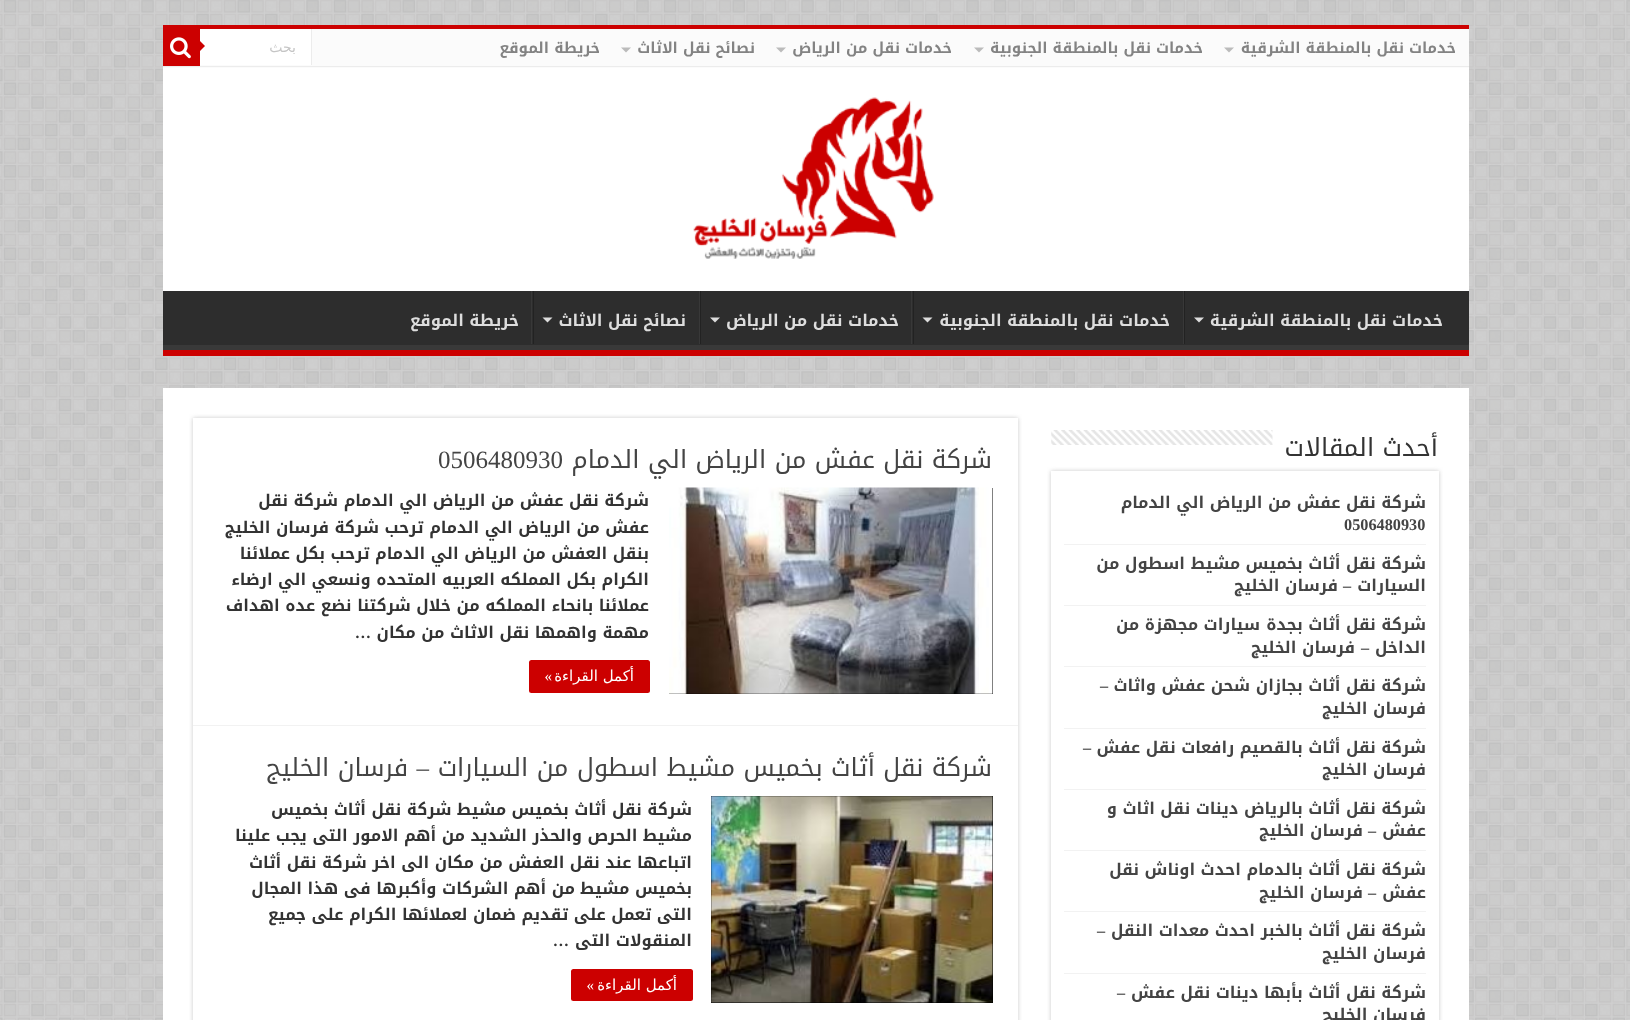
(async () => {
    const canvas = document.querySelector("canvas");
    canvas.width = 1630;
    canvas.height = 1020;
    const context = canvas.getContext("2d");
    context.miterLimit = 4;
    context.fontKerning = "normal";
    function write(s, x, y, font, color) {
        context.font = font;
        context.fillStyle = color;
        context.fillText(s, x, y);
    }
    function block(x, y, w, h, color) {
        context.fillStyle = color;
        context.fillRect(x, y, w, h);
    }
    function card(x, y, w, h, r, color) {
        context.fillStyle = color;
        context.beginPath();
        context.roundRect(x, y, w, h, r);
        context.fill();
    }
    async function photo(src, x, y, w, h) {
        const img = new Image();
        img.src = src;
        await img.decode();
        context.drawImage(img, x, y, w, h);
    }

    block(0, 0, 1630, 1020, "rgb(199, 199, 199)");
    await photo("media/1.png", 0, 0, 1630, 1020);
    block(163, 68, 1306, 223, "rgb(255, 255, 255)");
    block(163, 25, 1306, 4, "rgb(204, 0, 0)");
    block(163, 29, 1306, 39, "rgb(251, 251, 251)");
    block(163, 66, 1306, 1, "rgb(236, 236, 236)");
    context.direction = "rtl";
    write("خدمات نقل بالمنطقة الشرقية", 1456, 53, "bold 15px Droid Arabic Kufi", "rgb(131, 131, 131)");
    context.fillStyle = "rgb(187, 187, 187)";
    context.beginPath();
    context.moveTo(1224, 47.5);
    context.lineTo(1234, 47.5);
    context.lineTo(1229, 52.5);
    context.closePath();
    context.fill();
    write("خدمات نقل بالمنطقة الجنوبية", 1203, 53, "bold 15px Droid Arabic Kufi", "rgb(131, 131, 131)");
    context.fillStyle = "rgb(187, 187, 187)";
    context.beginPath();
    context.moveTo(974, 47.5);
    context.lineTo(984, 47.5);
    context.lineTo(979, 52.5);
    context.closePath();
    context.fill();
    write("خدمات نقل من الرياض", 952, 53, "bold 15px Droid Arabic Kufi", "rgb(131, 131, 131)");
    context.fillStyle = "rgb(187, 187, 187)";
    context.beginPath();
    context.moveTo(776, 47.5);
    context.lineTo(786, 47.5);
    context.lineTo(781, 52.5);
    context.closePath();
    context.fill();
    write("نصائح نقل الاثاث", 755, 53, "bold 15px Droid Arabic Kufi", "rgb(131, 131, 131)");
    context.fillStyle = "rgb(187, 187, 187)";
    context.beginPath();
    context.moveTo(621, 47.5);
    context.lineTo(631, 47.5);
    context.lineTo(626, 52.5);
    context.closePath();
    context.fill();
    write("خريطة الموقع", 600, 53, "bold 15px Droid Arabic Kufi", "rgb(131, 131, 131)");
    block(200, 29, 111, 36, "rgb(255, 255, 255)");
    block(311, 29, 1, 36, "rgb(236, 236, 236)");
    write("بحث", 296, 52, "14px DejaVu Sans", "rgb(197, 197, 197)");
    block(163, 29, 37, 37, "rgb(204, 0, 0)");
    await photo("media/2.png", 170, 37, 21, 22);
    context.beginPath();
    context.moveTo(200, 51);
    context.lineTo(200, 41);
    context.lineTo(205, 46);
    context.closePath();
    context.fill();
    await photo("media/3.png", 693, 97, 241, 162);
    block(163, 291, 1306, 54, "rgb(45, 45, 45)");
    context.save();
    context.beginPath();
    context.rect(163, 291, 1306, 59);
    context.clip();
    context.fillStyle = "rgb(57, 57, 57)";
    context.beginPath();
    context.moveTo(39, 168);
    context.lineTo(1592, 168);
    context.lineTo(1592, 474);
    context.lineTo(39, 474);
    context.closePath();
    context.moveTo(161, 284);
    context.lineTo(1468, 284);
    context.bezierCurveTo(1468, 284, 1469, 284, 1469, 285);
    context.lineTo(1469, 344);
    context.bezierCurveTo(1469, 344, 1468, 345, 1468, 345);
    context.lineTo(161, 345);
    context.bezierCurveTo(161, 345, 160, 344, 160, 344);
    context.lineTo(160, 285);
    context.bezierCurveTo(160, 284, 161, 284, 161, 284);
    context.closePath();
    context.fill("evenodd");
    context.restore();
    block(163, 350, 1306, 6, "rgb(204, 0, 0)");
    write("خدمات نقل بالمنطقة الشرقية", 1443, 326, "bold 16.25px Droid Arabic Kufi", "rgb(221, 221, 221)");
    context.beginPath();
    context.moveTo(1194, 317.5);
    context.lineTo(1204, 317.5);
    context.lineTo(1199, 322.5);
    context.closePath();
    context.fill();
    block(1184, 291, 1, 53, "rgb(34, 34, 34)");
    block(1183, 291, 1, 53, "rgb(56, 56, 56)");
    write("خدمات نقل بالمنطقة الجنوبية", 1170, 326, "bold 16.25px Droid Arabic Kufi", "rgb(221, 221, 221)");
    context.beginPath();
    context.moveTo(922.5, 317.5);
    context.lineTo(932.5, 317.5);
    context.lineTo(927.5, 322.5);
    context.closePath();
    context.fill();
    block(913, 291, 1, 53, "rgb(34, 34, 34)");
    block(911, 291, 1, 53, "rgb(56, 56, 56)");
    write("خدمات نقل من الرياض", 899, 326, "bold 16.25px Droid Arabic Kufi", "rgb(221, 221, 221)");
    context.beginPath();
    context.moveTo(710, 317.5);
    context.lineTo(720, 317.5);
    context.lineTo(715, 322.5);
    context.closePath();
    context.fill();
    block(700, 291, 1, 53, "rgb(34, 34, 34)");
    block(699, 291, 1, 53, "rgb(56, 56, 56)");
    write("نصائح نقل الاثاث", 686, 326, "bold 16.25px Droid Arabic Kufi", "rgb(221, 221, 221)");
    context.beginPath();
    context.moveTo(542.5, 317.5);
    context.lineTo(552.5, 317.5);
    context.lineTo(547.5, 322.5);
    context.closePath();
    context.fill();
    block(533, 291, 1, 53, "rgb(34, 34, 34)");
    block(531, 291, 1, 53, "rgb(56, 56, 56)");
    write("خريطة الموقع", 519, 326, "bold 16.25px Droid Arabic Kufi", "rgb(221, 221, 221)");
    block(163, 388, 1306, 632, "rgb(255, 255, 255)");
    write("أحدث المقالات", 1438, 456, "25px Droid Arabic Kufi", "rgb(51, 51, 51)");
    await photo("media/4.png", 1051, 430, 222, 15);
    context.fillStyle = "rgb(202, 202, 202)";
    context.filter = "blur(2px)";
    context.beginPath();
    context.rect(1051, 471, 388, 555);
    context.fill();
    context.filter = "none";
    block(1051, 471, 388, 549, "rgb(255, 255, 255)");
    block(1064, 544, 362, 1, "rgb(242, 242, 242)");
    write("شركة نقل عفش من الرياض الي الدمام", 1426, 508, "bold 16.25px Droid Arabic Kufi", "rgb(68, 68, 68)");
    context.direction = "ltr";
    write("0506480930", 1344, 530, "bold 16.25px Liberation Serif", "rgb(68, 68, 68)");
    block(1064, 605, 362, 1, "rgb(242, 242, 242)");
    context.direction = "rtl";
    write("شركة نقل أثاث بخميس مشيط", 1426, 569, "bold 16.25px Droid Arabic Kufi", "rgb(68, 68, 68)");
    write("اسطول من", 1185, 569, "bold 16.25px Droid Arabic Kufi", "rgb(68, 68, 68)");
    write("السيارات", 1426, 591, "bold 16.25px Droid Arabic Kufi", "rgb(68, 68, 68)");
    write("–", 1351, 591, "bold 16.25px Liberation Serif", "rgb(68, 68, 68)");
    write("فرسان الخليج", 1338, 591, "bold 16.25px Droid Arabic Kufi", "rgb(68, 68, 68)");
    block(1064, 666, 362, 1, "rgb(242, 242, 242)");
    write("شركة نقل أثاث بجدة", 1426, 630, "bold 16.25px Droid Arabic Kufi", "rgb(68, 68, 68)");
    write("سيارات مجهزة من", 1260, 630, "bold 16.25px Droid Arabic Kufi", "rgb(68, 68, 68)");
    write("الداخل", 1426, 653, "bold 16.25px Droid Arabic Kufi", "rgb(68, 68, 68)");
    write("–", 1369, 653, "bold 16.25px Liberation Serif", "rgb(68, 68, 68)");
    write("فرسان الخليج", 1355, 653, "bold 16.25px Droid Arabic Kufi", "rgb(68, 68, 68)");
    block(1064, 728, 362, 1, "rgb(242, 242, 242)");
    write("شركة نقل أثاث بجازان", 1426, 691, "bold 16.25px Droid Arabic Kufi", "rgb(68, 68, 68)");
    write("شحن عفش واثاث", 1250, 691, "bold 16.25px Droid Arabic Kufi", "rgb(68, 68, 68)");
    write("–", 1108, 691, "bold 16.25px Liberation Serif", "rgb(68, 68, 68)");
    write("فرسان الخليج", 1426, 714, "bold 16.25px Droid Arabic Kufi", "rgb(68, 68, 68)");
    block(1064, 789, 362, 1, "rgb(242, 242, 242)");
    write("شركة نقل أثاث بالقصيم رافعات نقل عفش", 1426, 753, "bold 16.25px Droid Arabic Kufi", "rgb(68, 68, 68)");
    write("–", 1091, 753, "bold 16.25px Liberation Serif", "rgb(68, 68, 68)");
    write("فرسان الخليج", 1426, 775, "bold 16.25px Droid Arabic Kufi", "rgb(68, 68, 68)");
    block(1064, 850, 362, 1, "rgb(242, 242, 242)");
    write("شركة نقل أثاث بالرياض دينات نقل اثاث و", 1426, 814, "bold 16.25px Droid Arabic Kufi", "rgb(68, 68, 68)");
    write("عفش", 1426, 836, "bold 16.25px Droid Arabic Kufi", "rgb(68, 68, 68)");
    write("–", 1376, 836, "bold 16.25px Liberation Serif", "rgb(68, 68, 68)");
    write("فرسان الخليج", 1363, 836, "bold 16.25px Droid Arabic Kufi", "rgb(68, 68, 68)");
    block(1064, 911, 362, 1, "rgb(242, 242, 242)");
    write("شركة نقل أثاث بالدمام احدث اوناش نقل", 1426, 875, "bold 16.25px Droid Arabic Kufi", "rgb(68, 68, 68)");
    write("عفش", 1426, 898, "bold 16.25px Droid Arabic Kufi", "rgb(68, 68, 68)");
    write("–", 1376, 898, "bold 16.25px Liberation Serif", "rgb(68, 68, 68)");
    write("فرسان الخليج", 1363, 898, "bold 16.25px Droid Arabic Kufi", "rgb(68, 68, 68)");
    block(1064, 973, 362, 1, "rgb(242, 242, 242)");
    write("شركة نقل أثاث بالخبر", 1426, 936, "bold 16.25px Droid Arabic Kufi", "rgb(68, 68, 68)");
    write("احدث معدات النقل", 1255, 936, "bold 16.25px Droid Arabic Kufi", "rgb(68, 68, 68)");
    write("–", 1105, 936, "bold 16.25px Liberation Serif", "rgb(68, 68, 68)");
    write("فرسان الخليج", 1426, 959, "bold 16.25px Droid Arabic Kufi", "rgb(68, 68, 68)");
    write("شركة نقل أثاث بأبها دينات نقل عفش", 1426, 998, "bold 16.25px Droid Arabic Kufi", "rgb(68, 68, 68)");
    write("–", 1125, 998, "bold 16.25px Liberation Serif", "rgb(68, 68, 68)");
    write("فرسان الخليج", 1426, 1020, "bold 16.25px Droid Arabic Kufi", "rgb(68, 68, 68)");
    context.fillStyle = "rgb(202, 202, 202)";
    context.filter = "blur(2px)";
    context.beginPath();
    context.rect(193, 418, 825, 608);
    context.fill();
    context.filter = "none";
    block(193, 418, 825, 602, "rgb(255, 255, 255)");
    block(193, 725, 825, 1, "rgb(242, 242, 242)");
    write("شركة نقل عفش من الرياض الي الدمام", 992, 468, "25px Droid Arabic Kufi", "rgb(68, 68, 68)");
    context.direction = "ltr";
    write("0506480930", 438, 468, "25px Liberation Serif", "rgb(68, 68, 68)");
    block(669, 488, 324, 206, "rgb(0, 0, 0)");
    await photo("media/5.png", 669, 487, 324, 207);
    context.direction = "rtl";
    write("شركة نقل عفش من الرياض الي الدمام شركة نقل", 649, 506, "bold 16.25px Droid Arabic Kufi", "rgb(51, 51, 51)");
    write("عفش من الرياض الي الدمام ترحب شركة فرسان الخليج", 649, 533, "bold 16.25px Droid Arabic Kufi", "rgb(51, 51, 51)");
    write("بنقل العفش من الرياض الي الدمام ترحب بكل عملائنا", 649, 559, "bold 16.25px Droid Arabic Kufi", "rgb(51, 51, 51)");
    write("الكرام بكل المملكه العربيه المتحده ونسعي الي ارضاء", 649, 585, "bold 16.25px Droid Arabic Kufi", "rgb(51, 51, 51)");
    write("عملائنا بانحاء المملكه من خلال شركتنا نضع عده اهداف", 649, 611, "bold 16.25px Droid Arabic Kufi", "rgb(51, 51, 51)");
    write("مهمة واهمها نقل الاثاث من مكان", 649, 638, "bold 16.25px Droid Arabic Kufi", "rgb(51, 51, 51)");
    write("…", 371, 638, "bold 16.25px Liberation Serif", "rgb(51, 51, 51)");
    card(529, 660, 121, 33, 2.5, "rgb(204, 0, 0)");
    write("أكمل القراءة", 634, 681, "15px DejaVu Sans", "rgb(255, 255, 255)");
    write("»", 552, 681, "15px Liberation Serif", "rgb(255, 255, 255)");
    write("شركة نقل أثاث بخميس مشيط", 992, 776, "25px Droid Arabic Kufi", "rgb(68, 68, 68)");
    write("اسطول من السيارات", 658, 776, "25px Droid Arabic Kufi", "rgb(68, 68, 68)");
    write("–", 429, 776, "25px Liberation Serif", "rgb(68, 68, 68)");
    write("فرسان الخليج", 408, 776, "25px Droid Arabic Kufi", "rgb(68, 68, 68)");
    block(711, 796, 282, 207, "rgb(0, 0, 0)");
    await photo("media/6.png", 711, 796, 282, 207);
    write("شركة نقل أثاث بخميس مشيط شركة نقل أثاث بخميس", 692, 815, "bold 16.25px Droid Arabic Kufi", "rgb(51, 51, 51)");
    write("مشيط الحرص والحذر الشديد من أهم الامور التى يجب علينا", 692, 841, "bold 16.25px Droid Arabic Kufi", "rgb(51, 51, 51)");
    write("اتباعها عند نقل العفش من مكان الى اخر شركة نقل أثاث", 692, 868, "bold 16.25px Droid Arabic Kufi", "rgb(51, 51, 51)");
    write("بخميس مشيط من أهم الشركات وأكبرها فى هذا المجال", 692, 894, "bold 16.25px Droid Arabic Kufi", "rgb(51, 51, 51)");
    write("التى تعمل على تقديم ضمان لعملائها الكرام على جميع", 692, 920, "bold 16.25px Droid Arabic Kufi", "rgb(51, 51, 51)");
    write("المنقولات التى", 692, 946, "bold 16.25px Droid Arabic Kufi", "rgb(51, 51, 51)");
    write("…", 569, 946, "bold 16.25px Liberation Serif", "rgb(51, 51, 51)");
    card(571, 969, 122, 32, 2.5, "rgb(204, 0, 0)");
    write("أكمل القراءة", 677, 990, "15px DejaVu Sans", "rgb(255, 255, 255)");
    write("»", 594, 990, "15px Liberation Serif", "rgb(255, 255, 255)");
})();
